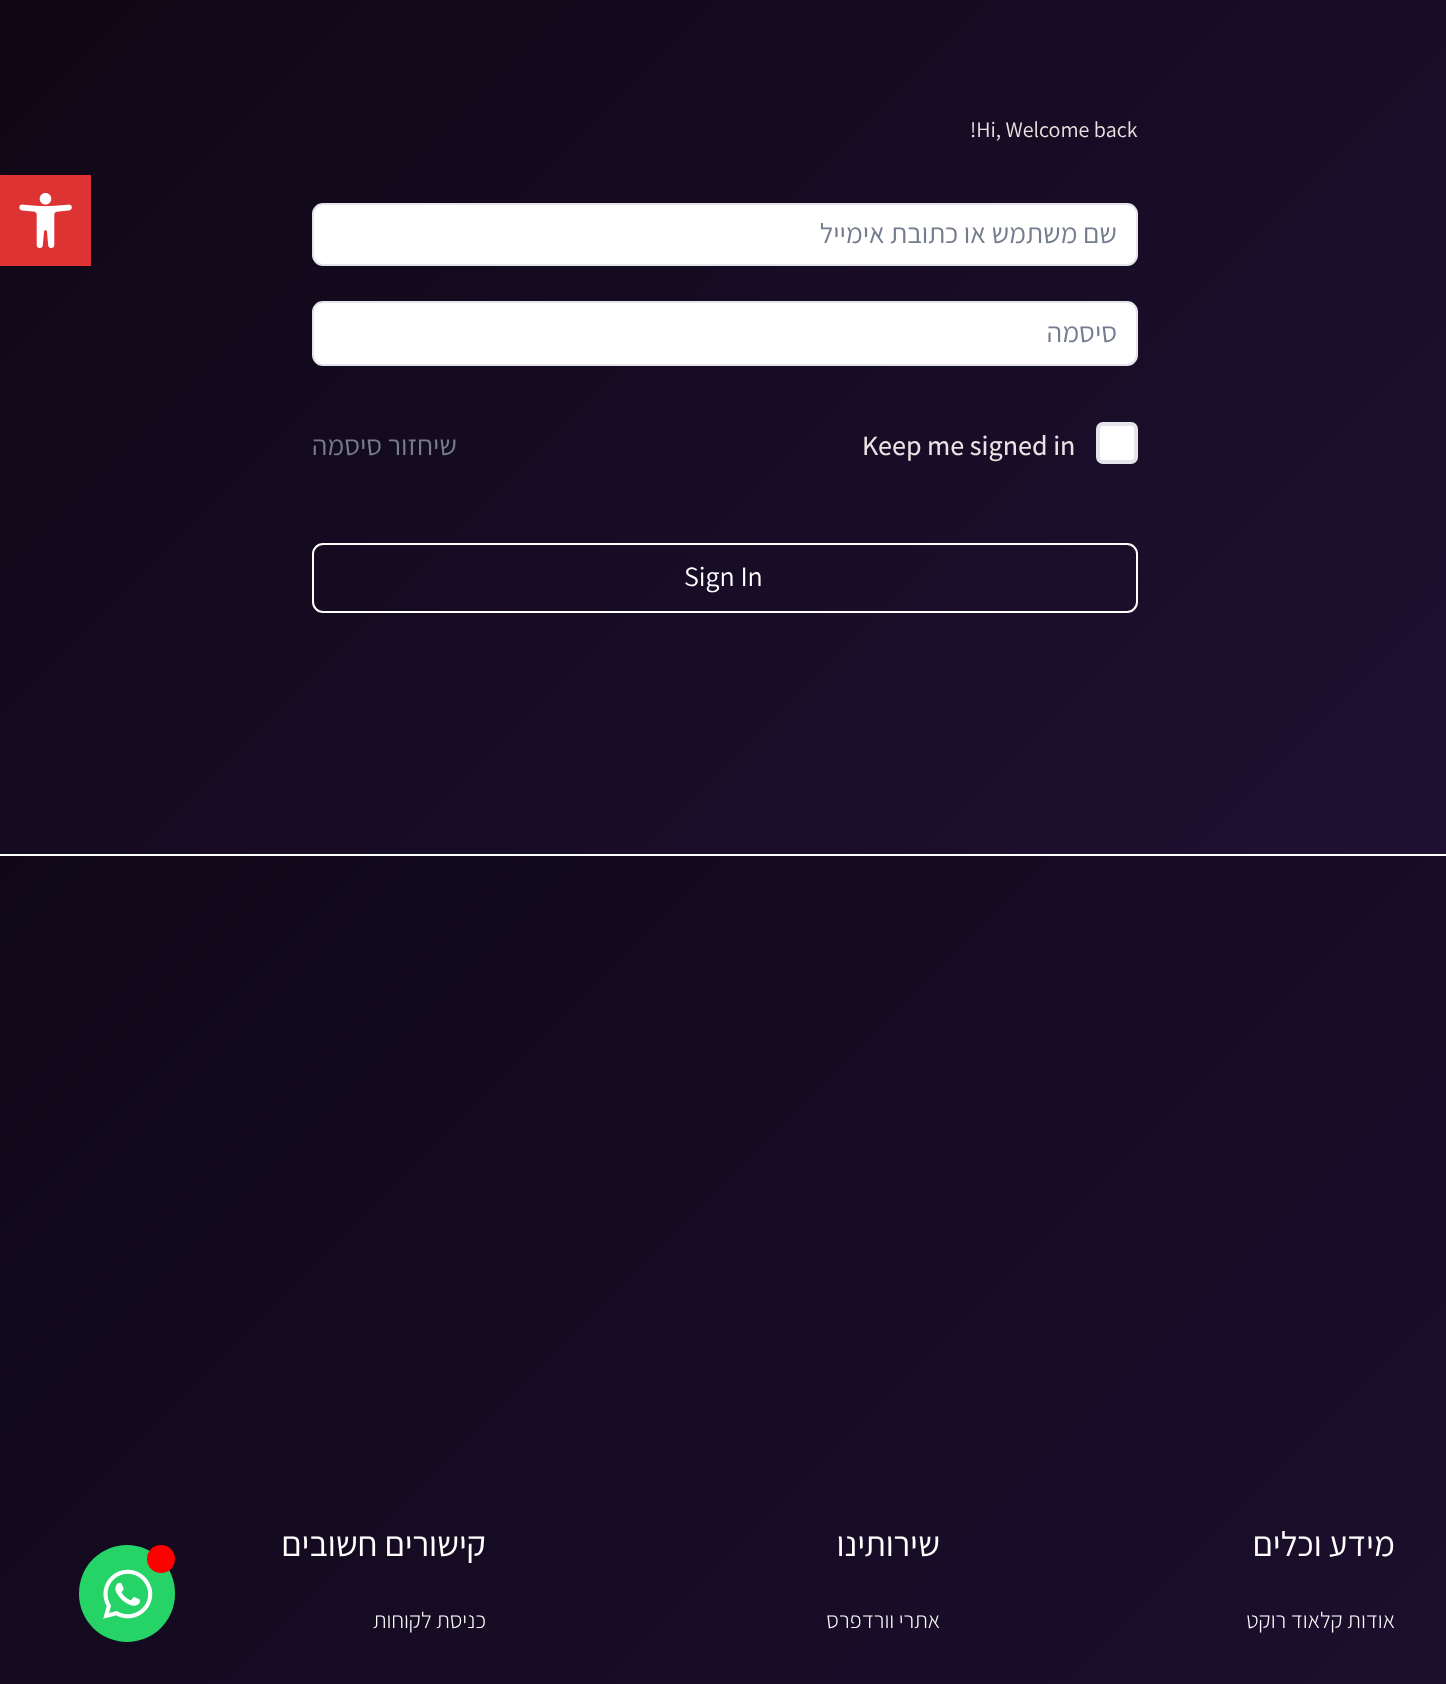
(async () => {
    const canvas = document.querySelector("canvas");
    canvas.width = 1446;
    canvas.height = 1684;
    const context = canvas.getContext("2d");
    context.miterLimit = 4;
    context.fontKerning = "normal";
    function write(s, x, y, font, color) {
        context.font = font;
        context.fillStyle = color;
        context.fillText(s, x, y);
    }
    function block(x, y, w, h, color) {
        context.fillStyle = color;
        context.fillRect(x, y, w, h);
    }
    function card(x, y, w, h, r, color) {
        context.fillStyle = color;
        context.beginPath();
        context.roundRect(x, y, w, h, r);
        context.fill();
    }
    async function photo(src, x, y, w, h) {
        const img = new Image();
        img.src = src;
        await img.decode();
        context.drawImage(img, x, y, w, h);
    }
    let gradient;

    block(0, 0, 1446, 1684, "rgb(255, 255, 255)");
    gradient = context.createLinearGradient(-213, 213, 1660, 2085);
    gradient.addColorStop(0, "rgb(15, 7, 21)");
    gradient.addColorStop(1, "rgb(40, 23, 69)");
    context.fillStyle = gradient;
    context.fillRect(0, 0, 1446, 854);
    gradient = context.createLinearGradient(-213, 213, 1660, 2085);
    gradient.addColorStop(0, "rgb(11, 5, 16)");
    gradient.addColorStop(1, "rgb(30, 17, 51)");
    context.fillStyle = gradient;
    context.fillRect(0, 856, 1446, 828);
    write("!Hi, Welcome back", 970, 137, "22px Assistant", "rgb(234, 227, 227)");
    context.fillStyle = "rgb(255, 255, 255)";
    context.beginPath();
    context.roundRect(313, 204, 824, 61, 10);
    context.fill();
    context.strokeStyle = "rgb(227, 229, 235)";
    context.lineWidth = 2;
    context.stroke();
    context.direction = "rtl";
    write("שם משתמש או כתובת אימייל", 1117, 243, "28px Assistant", "rgb(117, 124, 142)");
    context.fillStyle = "rgb(255, 255, 255)";
    context.beginPath();
    context.roundRect(313, 302, 824, 63, 10);
    context.fill();
    context.stroke();
    write("סיסמה", 1117, 342, "28px Assistant", "rgb(117, 124, 142)");
    context.fillStyle = "rgb(255, 255, 255)";
    context.beginPath();
    context.roundRect(1098, 424, 38, 38, 5);
    context.fill();
    context.lineWidth = 4;
    context.stroke();
    context.direction = "ltr";
    write("Keep me signed in", 862, 455, "500 28px Assistant", "rgb(234, 227, 227)");
    context.direction = "rtl";
    write("שיחזור סיסמה", 457, 455, "28px Assistant", "rgb(117, 124, 142)");
    context.beginPath();
    context.roundRect(313, 544, 824, 68, 10);
    context.strokeStyle = "rgb(255, 255, 255)";
    context.lineWidth = 2;
    context.stroke();
    context.direction = "ltr";
    write("Sign In", 684, 586, "28px Assistant", "rgb(255, 255, 255)");
    context.direction = "rtl";
    write("מידע וכלים", 1395, 1556, "35px Assistant", "rgb(255, 255, 255)");
    write("אודות קלאוד רוקט", 1395, 1628, "300 22.75px Assistant", "rgb(255, 255, 255)");
    write("שירותינו", 940, 1556, "35px Assistant", "rgb(255, 255, 255)");
    write("אתרי וורדפרס", 940, 1628, "300 22.75px Assistant", "rgb(255, 255, 255)");
    write("קישורים חשובים", 486, 1556, "35px Assistant", "rgb(255, 255, 255)");
    write("כניסת לקוחות", 486, 1628, "300 22.75px Assistant", "rgb(255, 255, 255)");
    block(0, 175, 91, 91, "rgb(221, 51, 51)");
    await photo("media/1.png", 19, 193, 53, 56);
    card(79, 1545, 96, 97, 48, "rgb(37, 211, 102)");
    await photo("media/2.png", 103, 1569, 50, 50);
    context.fillStyle = "rgb(255, 0, 0)";
    context.beginPath();
    context.arc(161, 1559, 14, 0, Math.PI * 2);
    context.fill();
})();
